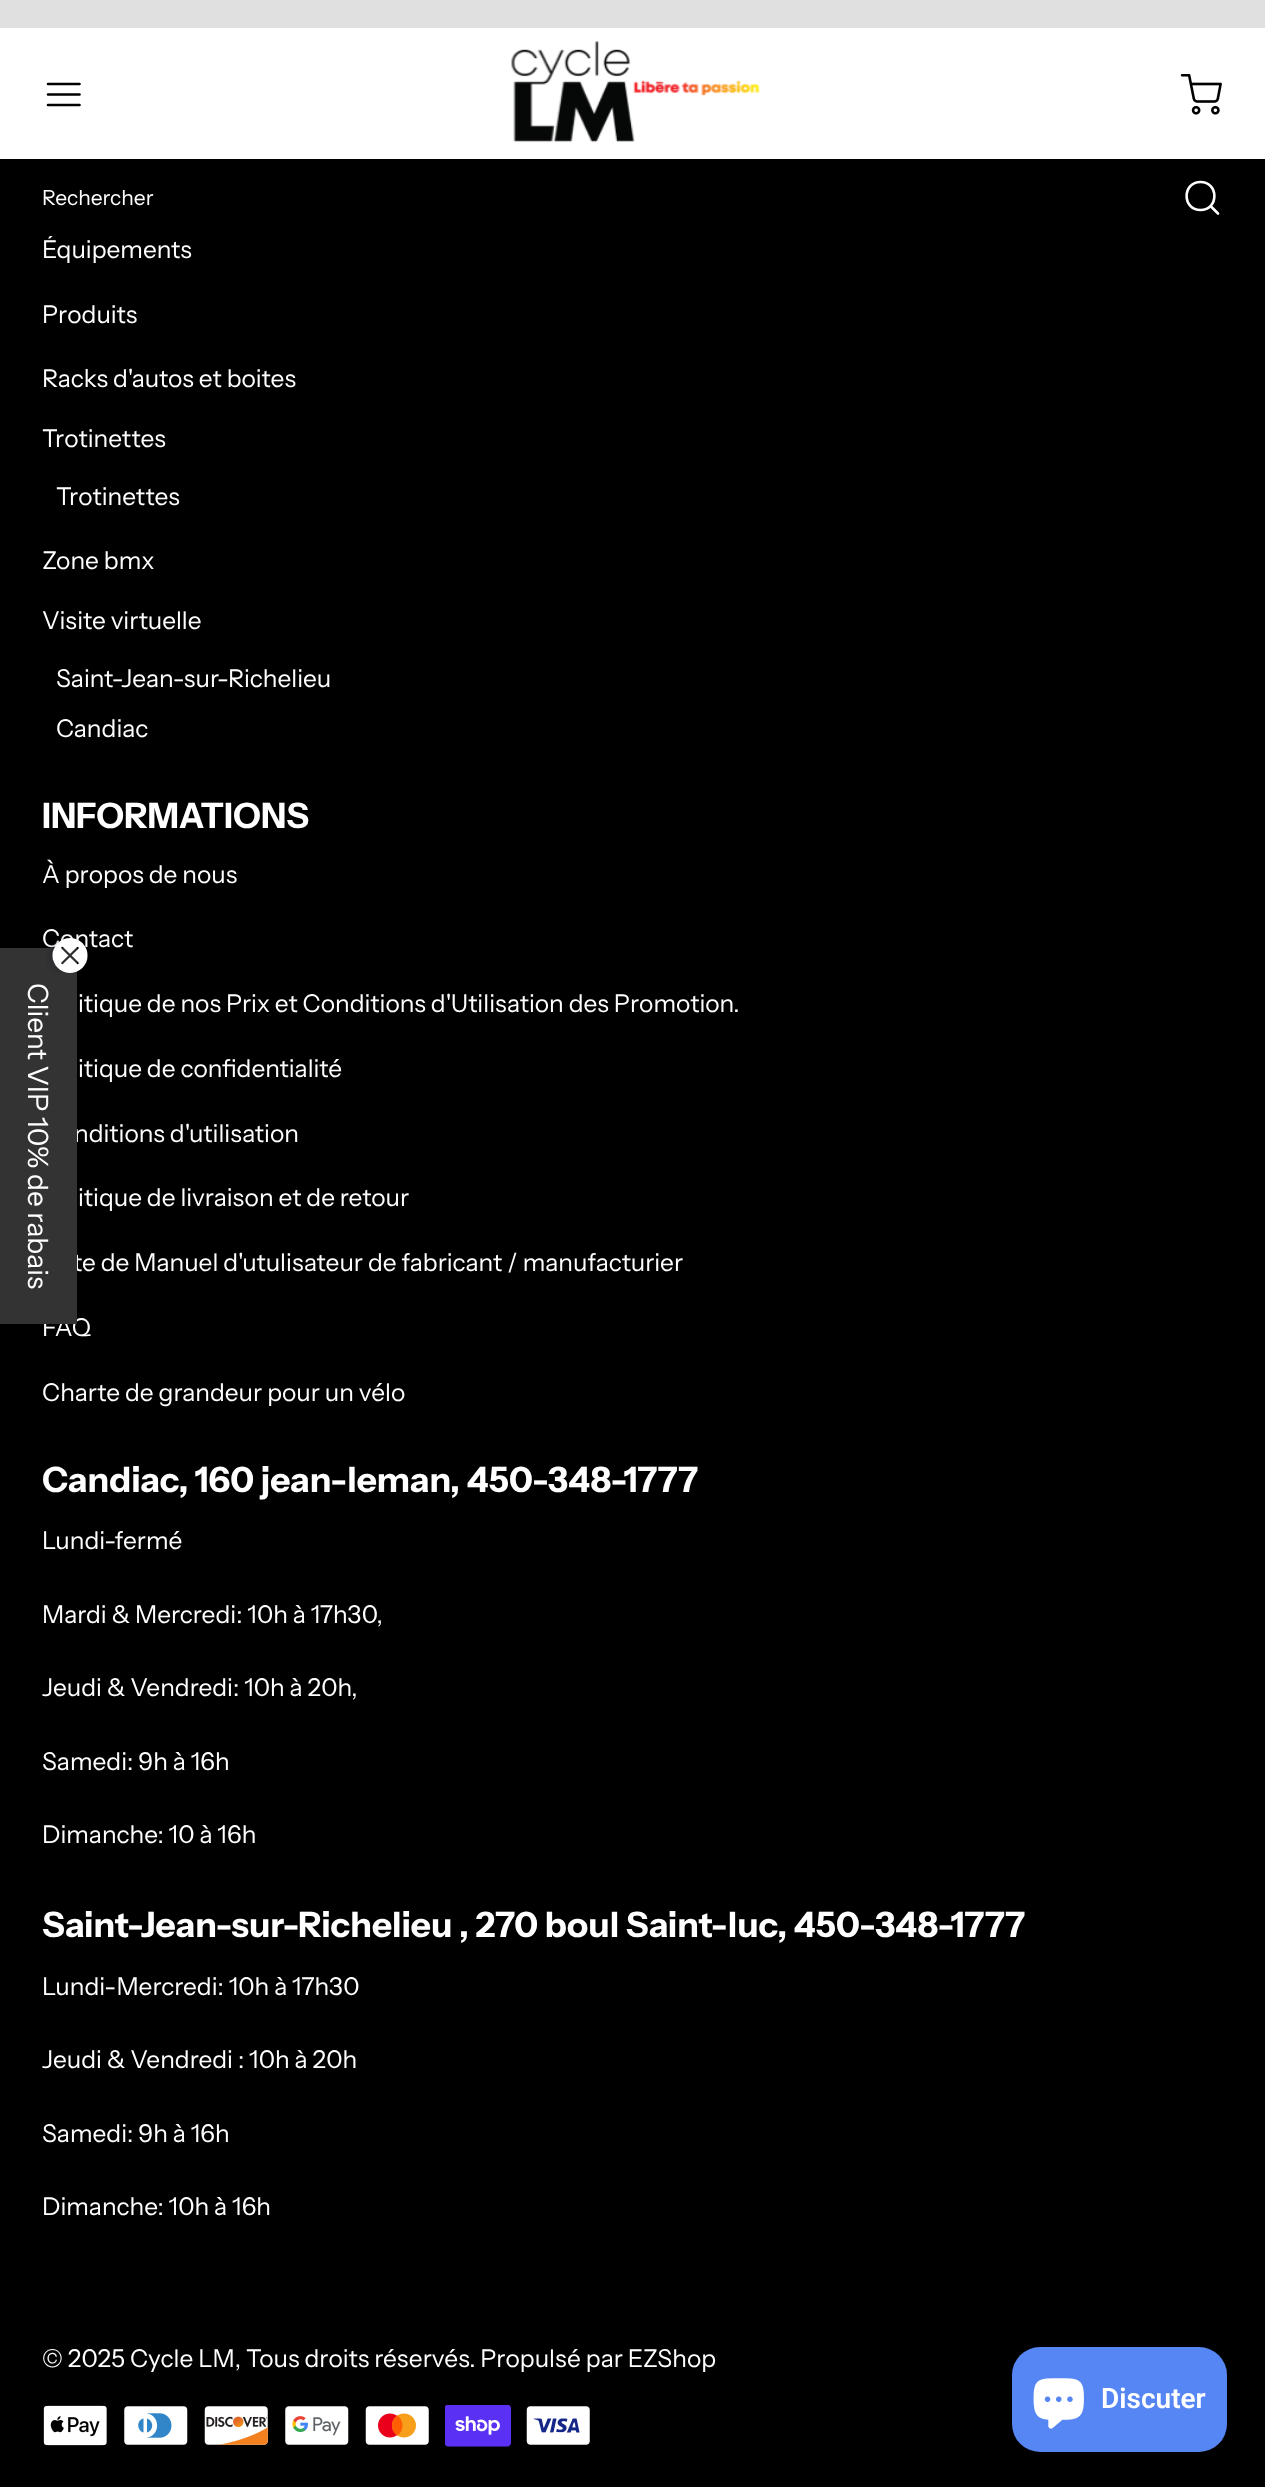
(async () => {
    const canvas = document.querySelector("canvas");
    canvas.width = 1265;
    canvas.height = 2487;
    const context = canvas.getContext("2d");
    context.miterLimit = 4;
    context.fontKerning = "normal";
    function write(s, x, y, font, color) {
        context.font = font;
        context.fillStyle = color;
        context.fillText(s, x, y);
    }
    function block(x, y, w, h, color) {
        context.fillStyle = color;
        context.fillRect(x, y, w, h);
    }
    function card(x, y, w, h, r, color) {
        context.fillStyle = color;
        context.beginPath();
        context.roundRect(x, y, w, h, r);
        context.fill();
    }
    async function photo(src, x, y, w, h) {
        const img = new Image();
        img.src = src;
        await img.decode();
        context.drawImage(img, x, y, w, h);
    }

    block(0, 0, 1265, 2487, "rgb(0, 0, 0)");
    block(0, 0, 1265, 28, "rgb(224, 224, 224)");
    block(0, 28, 1265, 131, "rgb(255, 255, 255)");
    context.beginPath();
    context.moveTo(48, 94.5);
    context.lineTo(79.5, 94.5);
    context.moveTo(48, 84);
    context.lineTo(79.5, 84);
    context.moveTo(48, 105);
    context.lineTo(79.5, 105);
    context.strokeStyle = "rgb(0, 0, 0)";
    context.lineWidth = 2.6;
    context.lineCap = "round";
    context.lineJoin = "round";
    context.stroke();
    await photo("media/1.png", 511, 41, 249, 102);
    await photo("media/2.png", 1180, 74, 42, 41);
    write("Équipements", 42, 258, "24.5px Instrument Sans", "rgb(255, 255, 255)");
    block(50, 234, 4, 2, "rgb(0, 0, 0)");
    write("Rechercher", 42, 205, "21px Instrument Sans", "rgb(255, 255, 255)");
    context.beginPath();
    context.moveTo(1200.5, 210);
    context.bezierCurveTo(1219, 210, 1219, 182, 1200.5, 182);
    context.bezierCurveTo(1182, 182, 1182, 210, 1200.5, 210);
    context.closePath();
    context.moveTo(1218, 213.5);
    context.lineTo(1210.5, 206);
    context.strokeStyle = "rgb(255, 255, 255)";
    context.stroke();
    write("nditions d'utilisation", 74, 1142, "24.5px Instrument Sans", "rgb(255, 255, 255)");
    write("te de Manuel d'utulisateur de fabricant / manufacturier", 73, 1271, "24.5px Instrument Sans", "rgb(255, 255, 255)");
    write("FAQ", 42, 1336, "24.5px Instrument Sans", "rgb(255, 255, 255)");
    block(0, 948, 77, 376, "rgb(51, 51, 51)");
    write("Contact", 42, 947, "24.5px Instrument Sans", "rgb(255, 255, 255)");
    await photo("media/3.png", 46, 934, 42, 39);
    context.font = "28px Instrument Sans";
    context.save();
    context.translate(28, 983);
    context.rotate(90 * Math.PI / 180);
    context.fillText("Client VIP 10% de rabais", 0, 0);
    context.restore();
    write("Produits", 42, 323, "24.5px Instrument Sans", "rgb(255, 255, 255)");
    write("Racks d'autos et boites", 42, 387, "24.5px Instrument Sans", "rgb(255, 255, 255)");
    write("Trotinettes", 42, 447, "24.5px Instrument Sans", "rgb(255, 255, 255)");
    write("Trotinettes", 56, 505, "24.5px Instrument Sans", "rgb(255, 255, 255)");
    write("Zone bmx", 42, 569, "24.5px Instrument Sans", "rgb(255, 255, 255)");
    write("Visite virtuelle", 42, 629, "24.5px Instrument Sans", "rgb(255, 255, 255)");
    write("Saint-Jean-sur-Richelieu", 56, 687, "24.5px Instrument Sans", "rgb(255, 255, 255)");
    write("Candiac", 56, 737, "24.5px Instrument Sans", "rgb(255, 255, 255)");
    write("INFORMATIONS", 42, 828, "bold 35px Instrument Sans", "rgb(255, 255, 255)");
    write("À propos de nous", 42, 883, "24.5px Instrument Sans", "rgb(255, 255, 255)");
    write("itique de nos Prix et Conditions d'Utilisation des Promotion.", 78, 1012, "24.5px Instrument Sans", "rgb(255, 255, 255)");
    write("itique de confidentialité", 78, 1077, "24.5px Instrument Sans", "rgb(255, 255, 255)");
    write("itique de livraison et de retour", 78, 1206, "24.5px Instrument Sans", "rgb(255, 255, 255)");
    write("Charte de grandeur pour un vélo", 42, 1401, "24.5px Instrument Sans", "rgb(255, 255, 255)");
    write("Candiac, 160 jean-leman, 450-348-1777", 42, 1492, "bold 35px Instrument Sans", "rgb(255, 255, 255)");
    write("Lundi-fermé", 42, 1549, "24.5px Instrument Sans", "rgb(255, 255, 255)");
    write("Mardi & Mercredi: 10h à 17h30,", 42, 1623, "24.5px Instrument Sans", "rgb(255, 255, 255)");
    write("Jeudi & Vendredi: 10h à 20h,", 42, 1696, "24.5px Instrument Sans", "rgb(255, 255, 255)");
    write("Samedi: 9h à 16h", 42, 1770, "24.5px Instrument Sans", "rgb(255, 255, 255)");
    write("Dimanche: 10 à 16h", 42, 1843, "24.5px Instrument Sans", "rgb(255, 255, 255)");
    write("Saint-Jean-sur-Richelieu , 270 boul Saint-luc, 450-348-1777", 42, 1937, "bold 35px Instrument Sans", "rgb(255, 255, 255)");
    write("Lundi-Mercredi: 10h à 17h30", 42, 1995, "24.5px Instrument Sans", "rgb(255, 255, 255)");
    write("Jeudi & Vendredi : 10h à 20h", 42, 2068, "24.5px Instrument Sans", "rgb(255, 255, 255)");
    write("Samedi: 9h à 16h", 42, 2142, "24.5px Instrument Sans", "rgb(255, 255, 255)");
    write("Dimanche: 10h à 16h", 42, 2215, "24.5px Instrument Sans", "rgb(255, 255, 255)");
    write("© 2025 Cycle LM, Tous droits réservés. Propulsé par EZShop", 42, 2367, "24.5px Instrument Sans", "rgb(255, 255, 255)");
    await photo("media/4.png", 43, 2405, 64, 41);
    await photo("media/5.png", 124, 2406, 64, 39);
    await photo("media/6.png", 204, 2406, 64, 39);
    await photo("media/7.png", 285, 2406, 64, 39);
    await photo("media/8.png", 365, 2406, 64, 39);
    await photo("media/9.png", 445, 2405, 66, 42);
    await photo("media/10.png", 526, 2406, 64, 39);
    card(1012, 2347, 215, 105, 28, "rgb(85, 134, 244)");
    await photo("media/11.png", 1033, 2378, 51, 51);
    write("Discuter", 1101, 2408, "600 28px Roboto", "rgb(255, 255, 255)");
})();
